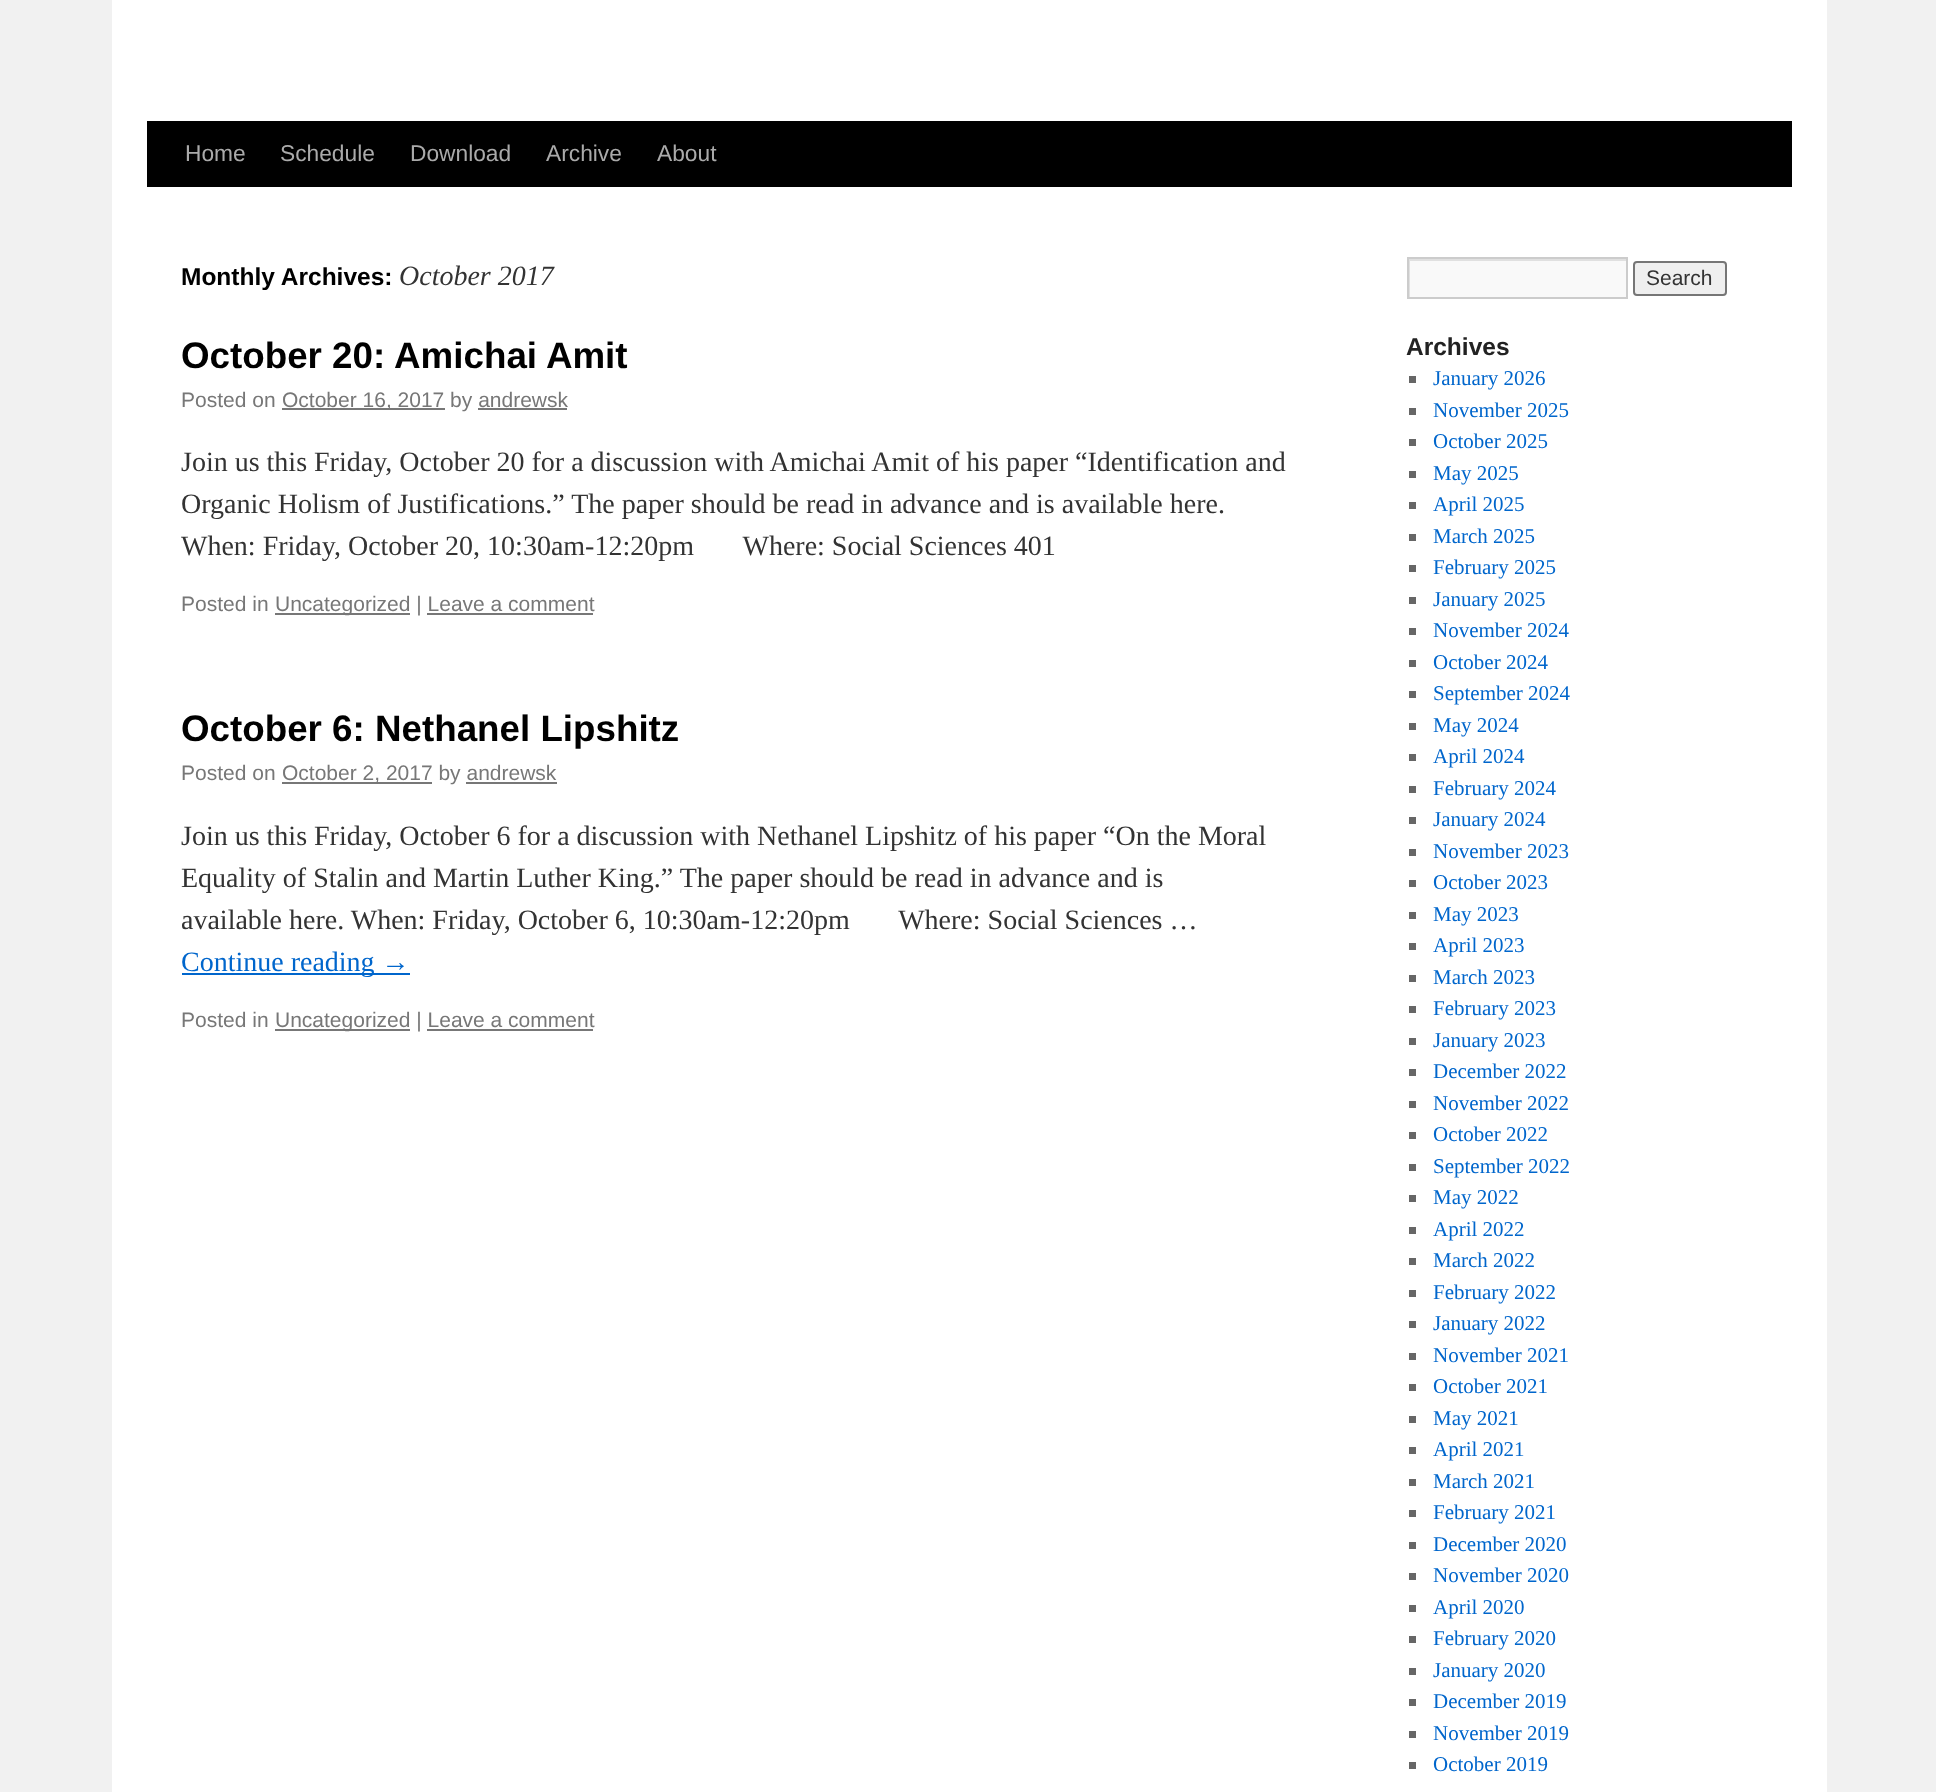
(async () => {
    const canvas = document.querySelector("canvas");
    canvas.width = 1936;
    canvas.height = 1792;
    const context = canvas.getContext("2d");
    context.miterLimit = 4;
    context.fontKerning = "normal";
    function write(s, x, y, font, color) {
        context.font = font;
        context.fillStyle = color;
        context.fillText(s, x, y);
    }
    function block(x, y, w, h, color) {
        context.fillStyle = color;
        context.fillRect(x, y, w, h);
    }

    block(0, 0, 1936, 1792, "rgb(241, 241, 241)");
    block(112, 0, 1715, 1792, "rgb(255, 255, 255)");
    block(147, 121, 1645, 66, "rgb(0, 0, 0)");
    write("Home", 185, 161, "22.75px Liberation Sans", "rgb(170, 170, 170)");
    write("Schedule", 280, 161, "22.75px Liberation Sans", "rgb(170, 170, 170)");
    write("Download", 410, 161, "22.75px Liberation Sans", "rgb(170, 170, 170)");
    write("Archive", 546, 161, "22.75px Liberation Sans", "rgb(170, 170, 170)");
    write("About", 657, 161, "22.75px Liberation Sans", "rgb(170, 170, 170)");
    write("Monthly Archives:", 181, 285, "bold 24.5px Liberation Sans", "rgb(0, 0, 0)");
    write("October 2017", 399, 285, "italic 28px Liberation Serif", "rgb(51, 51, 51)");
    write("October 20: Amichai Amit", 181, 368, "bold 36.75px Liberation Sans", "rgb(0, 0, 0)");
    write("Posted on", 181, 407, "21px Liberation Sans", "rgb(119, 119, 119)");
    block(282, 408, 163, 2, "rgb(119, 119, 119)");
    write("October 16, 2017 by andrewsk", 282, 407, "21px Liberation Sans", "rgb(119, 119, 119)");
    block(478, 408, 89, 2, "rgb(119, 119, 119)");
    write("Join us this Friday, October 20 for a discussion with Amichai Amit of his paper “Identification and", 181, 471, "28px Liberation Serif", "rgb(51, 51, 51)");
    write("Organic Holism of Justifications.” The paper should be read in advance and is available here.", 181, 513, "28px Liberation Serif", "rgb(51, 51, 51)");
    write("When: Friday, October 20, 10:30am-12:20pm       Where: Social Sciences 401", 181, 555, "28px Liberation Serif", "rgb(51, 51, 51)");
    write("Posted in", 181, 611, "21px Liberation Sans", "rgb(119, 119, 119)");
    block(275, 613, 135, 2, "rgb(119, 119, 119)");
    write("Uncategorized | Leave a comment", 275, 611, "21px Liberation Sans", "rgb(119, 119, 119)");
    block(427, 613, 166, 2, "rgb(119, 119, 119)");
    write("October 6: Nethanel Lipshitz", 181, 741, "bold 36.75px Liberation Sans", "rgb(0, 0, 0)");
    write("Posted on", 181, 780, "21px Liberation Sans", "rgb(119, 119, 119)");
    block(282, 782, 150, 2, "rgb(119, 119, 119)");
    write("October 2, 2017 by andrewsk", 282, 780, "21px Liberation Sans", "rgb(119, 119, 119)");
    block(466, 782, 91, 2, "rgb(119, 119, 119)");
    write("Join us this Friday, October 6 for a discussion with Nethanel Lipshitz of his paper “On the Moral", 181, 845, "28px Liberation Serif", "rgb(51, 51, 51)");
    write("Equality of Stalin and Martin Luther King.” The paper should be read in advance and is", 181, 887, "28px Liberation Serif", "rgb(51, 51, 51)");
    write("available here. When: Friday, October 6, 10:30am-12:20pm       Where: Social Sciences …", 181, 929, "28px Liberation Serif", "rgb(51, 51, 51)");
    block(182, 973, 228, 2, "rgb(0, 102, 204)");
    write("Continue reading →", 181, 971, "28px Liberation Serif", "rgb(0, 102, 204)");
    write("Posted in", 181, 1027, "21px Liberation Sans", "rgb(119, 119, 119)");
    block(275, 1029, 135, 2, "rgb(119, 119, 119)");
    write("Uncategorized | Leave a comment", 275, 1027, "21px Liberation Sans", "rgb(119, 119, 119)");
    block(427, 1029, 166, 2, "rgb(119, 119, 119)");
    block(1410, 261, 216, 36, "rgb(249, 249, 249)");
    context.save();
    context.beginPath();
    context.rect(1409, 259, 217, 39);
    context.clip();
    context.fillStyle = "rgb(224, 224, 224)";
    context.beginPath();
    context.moveTo(1236, 86);
    context.lineTo(1799, 86);
    context.lineTo(1799, 471);
    context.lineTo(1236, 471);
    context.closePath();
    context.moveTo(1410, 261);
    context.lineTo(1628, 261);
    context.lineTo(1628, 299);
    context.lineTo(1410, 299);
    context.closePath();
    context.fill("evenodd");
    context.restore();
    context.strokeStyle = "rgb(204, 204, 204)";
    context.lineWidth = 2;
    context.strokeRect(1408, 258, 219, 40);
    context.fillStyle = "rgb(239, 239, 239)";
    context.beginPath();
    context.roundRect(1634, 262, 92, 33, 3);
    context.fill();
    context.strokeStyle = "rgb(118, 118, 118)";
    context.stroke();
    write("Search", 1646, 285, "21px Liberation Sans", "rgb(51, 51, 51)");
    write("Archives", 1406, 355, "bold 24.5px Liberation Sans", "rgb(34, 34, 34)");
    block(1409, 376, 7, 7, "rgb(102, 102, 102)");
    write("January 2026", 1433, 385, "21px Liberation Serif", "rgb(0, 102, 204)");
    block(1409, 408, 7, 7, "rgb(102, 102, 102)");
    write("November 2025", 1433, 417, "21px Liberation Serif", "rgb(0, 102, 204)");
    block(1409, 439, 7, 7, "rgb(102, 102, 102)");
    write("October 2025", 1433, 448, "21px Liberation Serif", "rgb(0, 102, 204)");
    block(1409, 471, 7, 7, "rgb(102, 102, 102)");
    write("May 2025", 1433, 480, "21px Liberation Serif", "rgb(0, 102, 204)");
    block(1409, 502, 7, 7, "rgb(102, 102, 102)");
    write("April 2025", 1433, 511, "21px Liberation Serif", "rgb(0, 102, 204)");
    block(1409, 534, 7, 7, "rgb(102, 102, 102)");
    write("March 2025", 1433, 543, "21px Liberation Serif", "rgb(0, 102, 204)");
    block(1409, 565, 7, 7, "rgb(102, 102, 102)");
    write("February 2025", 1433, 574, "21px Liberation Serif", "rgb(0, 102, 204)");
    block(1409, 597, 7, 7, "rgb(102, 102, 102)");
    write("January 2025", 1433, 606, "21px Liberation Serif", "rgb(0, 102, 204)");
    block(1409, 628, 7, 7, "rgb(102, 102, 102)");
    write("November 2024", 1433, 637, "21px Liberation Serif", "rgb(0, 102, 204)");
    block(1409, 660, 7, 7, "rgb(102, 102, 102)");
    write("October 2024", 1433, 669, "21px Liberation Serif", "rgb(0, 102, 204)");
    block(1409, 691, 7, 7, "rgb(102, 102, 102)");
    write("September 2024", 1433, 700, "21px Liberation Serif", "rgb(0, 102, 204)");
    block(1409, 723, 7, 7, "rgb(102, 102, 102)");
    write("May 2024", 1433, 732, "21px Liberation Serif", "rgb(0, 102, 204)");
    block(1409, 754, 7, 7, "rgb(102, 102, 102)");
    write("April 2024", 1433, 763, "21px Liberation Serif", "rgb(0, 102, 204)");
    block(1409, 786, 7, 7, "rgb(102, 102, 102)");
    write("February 2024", 1433, 795, "21px Liberation Serif", "rgb(0, 102, 204)");
    block(1409, 817, 7, 7, "rgb(102, 102, 102)");
    write("January 2024", 1433, 826, "21px Liberation Serif", "rgb(0, 102, 204)");
    block(1409, 849, 7, 7, "rgb(102, 102, 102)");
    write("November 2023", 1433, 858, "21px Liberation Serif", "rgb(0, 102, 204)");
    block(1409, 880, 7, 7, "rgb(102, 102, 102)");
    write("October 2023", 1433, 889, "21px Liberation Serif", "rgb(0, 102, 204)");
    block(1409, 912, 7, 7, "rgb(102, 102, 102)");
    write("May 2023", 1433, 921, "21px Liberation Serif", "rgb(0, 102, 204)");
    block(1409, 943, 7, 7, "rgb(102, 102, 102)");
    write("April 2023", 1433, 952, "21px Liberation Serif", "rgb(0, 102, 204)");
    block(1409, 975, 7, 7, "rgb(102, 102, 102)");
    write("March 2023", 1433, 984, "21px Liberation Serif", "rgb(0, 102, 204)");
    block(1409, 1006, 7, 7, "rgb(102, 102, 102)");
    write("February 2023", 1433, 1015, "21px Liberation Serif", "rgb(0, 102, 204)");
    block(1409, 1038, 7, 7, "rgb(102, 102, 102)");
    write("January 2023", 1433, 1047, "21px Liberation Serif", "rgb(0, 102, 204)");
    block(1409, 1069, 7, 7, "rgb(102, 102, 102)");
    write("December 2022", 1433, 1078, "21px Liberation Serif", "rgb(0, 102, 204)");
    block(1409, 1101, 7, 7, "rgb(102, 102, 102)");
    write("November 2022", 1433, 1110, "21px Liberation Serif", "rgb(0, 102, 204)");
    block(1409, 1132, 7, 7, "rgb(102, 102, 102)");
    write("October 2022", 1433, 1141, "21px Liberation Serif", "rgb(0, 102, 204)");
    block(1409, 1164, 7, 7, "rgb(102, 102, 102)");
    write("September 2022", 1433, 1173, "21px Liberation Serif", "rgb(0, 102, 204)");
    block(1409, 1195, 7, 7, "rgb(102, 102, 102)");
    write("May 2022", 1433, 1204, "21px Liberation Serif", "rgb(0, 102, 204)");
    block(1409, 1227, 7, 7, "rgb(102, 102, 102)");
    write("April 2022", 1433, 1236, "21px Liberation Serif", "rgb(0, 102, 204)");
    block(1409, 1258, 7, 7, "rgb(102, 102, 102)");
    write("March 2022", 1433, 1267, "21px Liberation Serif", "rgb(0, 102, 204)");
    block(1409, 1290, 7, 7, "rgb(102, 102, 102)");
    write("February 2022", 1433, 1299, "21px Liberation Serif", "rgb(0, 102, 204)");
    block(1409, 1321, 7, 7, "rgb(102, 102, 102)");
    write("January 2022", 1433, 1330, "21px Liberation Serif", "rgb(0, 102, 204)");
    block(1409, 1353, 7, 7, "rgb(102, 102, 102)");
    write("November 2021", 1433, 1362, "21px Liberation Serif", "rgb(0, 102, 204)");
    block(1409, 1384, 7, 7, "rgb(102, 102, 102)");
    write("October 2021", 1433, 1393, "21px Liberation Serif", "rgb(0, 102, 204)");
    block(1409, 1416, 7, 7, "rgb(102, 102, 102)");
    write("May 2021", 1433, 1425, "21px Liberation Serif", "rgb(0, 102, 204)");
    block(1409, 1447, 7, 7, "rgb(102, 102, 102)");
    write("April 2021", 1433, 1456, "21px Liberation Serif", "rgb(0, 102, 204)");
    block(1409, 1479, 7, 7, "rgb(102, 102, 102)");
    write("March 2021", 1433, 1488, "21px Liberation Serif", "rgb(0, 102, 204)");
    block(1409, 1510, 7, 7, "rgb(102, 102, 102)");
    write("February 2021", 1433, 1519, "21px Liberation Serif", "rgb(0, 102, 204)");
    block(1409, 1542, 7, 7, "rgb(102, 102, 102)");
    write("December 2020", 1433, 1551, "21px Liberation Serif", "rgb(0, 102, 204)");
    block(1409, 1573, 7, 7, "rgb(102, 102, 102)");
    write("November 2020", 1433, 1582, "21px Liberation Serif", "rgb(0, 102, 204)");
    block(1409, 1605, 7, 7, "rgb(102, 102, 102)");
    write("April 2020", 1433, 1614, "21px Liberation Serif", "rgb(0, 102, 204)");
    block(1409, 1636, 7, 7, "rgb(102, 102, 102)");
    write("February 2020", 1433, 1645, "21px Liberation Serif", "rgb(0, 102, 204)");
    block(1409, 1668, 7, 7, "rgb(102, 102, 102)");
    write("January 2020", 1433, 1677, "21px Liberation Serif", "rgb(0, 102, 204)");
    block(1409, 1699, 7, 7, "rgb(102, 102, 102)");
    write("December 2019", 1433, 1708, "21px Liberation Serif", "rgb(0, 102, 204)");
    block(1409, 1731, 7, 7, "rgb(102, 102, 102)");
    write("November 2019", 1433, 1740, "21px Liberation Serif", "rgb(0, 102, 204)");
    block(1409, 1762, 7, 7, "rgb(102, 102, 102)");
    write("October 2019", 1433, 1771, "21px Liberation Serif", "rgb(0, 102, 204)");
})();
